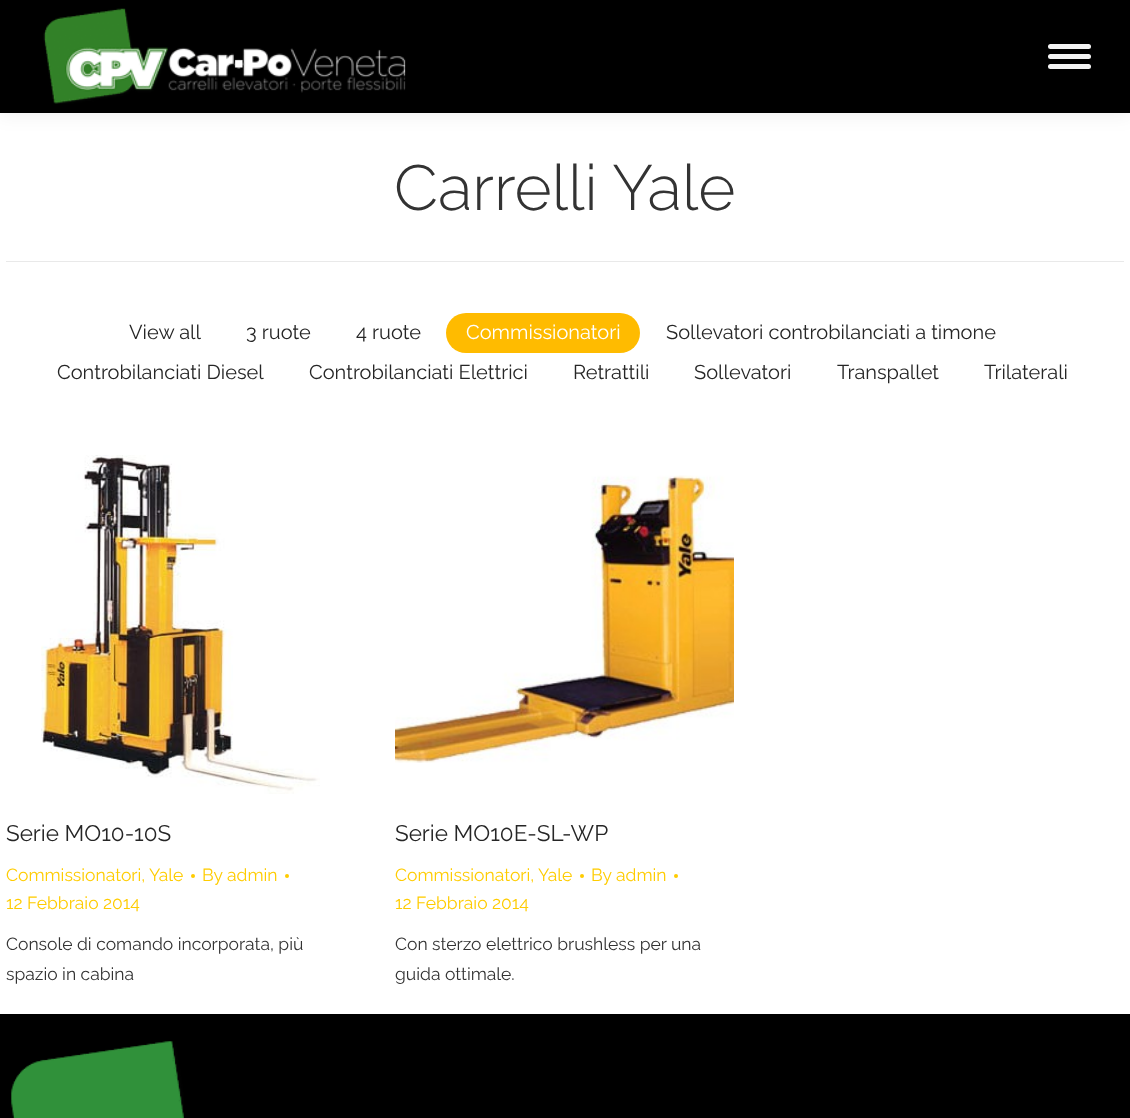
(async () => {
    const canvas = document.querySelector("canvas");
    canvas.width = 1130;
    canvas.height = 1118;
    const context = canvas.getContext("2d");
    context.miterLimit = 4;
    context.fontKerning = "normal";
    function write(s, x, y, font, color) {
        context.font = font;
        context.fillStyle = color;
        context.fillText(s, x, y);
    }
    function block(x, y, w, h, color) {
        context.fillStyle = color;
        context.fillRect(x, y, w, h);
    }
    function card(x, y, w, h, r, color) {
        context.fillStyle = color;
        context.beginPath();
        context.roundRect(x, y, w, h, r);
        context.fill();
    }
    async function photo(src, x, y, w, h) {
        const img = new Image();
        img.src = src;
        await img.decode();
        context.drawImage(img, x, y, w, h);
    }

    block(0, 0, 1130, 1118, "rgb(255, 255, 255)");
    context.fillStyle = "rgba(0, 0, 0, 0.07)";
    context.filter = "blur(9.5px)";
    context.beginPath();
    context.rect(-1, -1, 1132, 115);
    context.fill();
    context.filter = "none";
    block(0, 0, 1130, 113, "rgb(0, 0, 0)");
    await photo("media/1.png", 43, 8, 363, 96);
    card(1048, 44, 43, 5, 2.5, "rgb(244, 244, 244)");
    card(1048, 54, 43, 5, 2.5, "rgb(244, 244, 244)");
    card(1048, 64, 43, 5, 2.5, "rgb(244, 244, 244)");
    write("Carrelli Yale", 394, 210, "300 63.75px Raleway", "rgb(51, 51, 51)");
    block(6, 261, 1118, 1, "rgb(233, 233, 233)");
    write("View all", 129, 339, "20px Raleway", "rgb(38, 38, 38)");
    write("3 ruote", 246, 339, "20px Raleway", "rgb(38, 38, 38)");
    write("4 ruote", 356, 339, "20px Raleway", "rgb(38, 38, 38)");
    card(446, 313, 194, 40, 20, "rgb(255, 187, 0)");
    write("Commissionatori", 466, 339, "20px Raleway", "rgb(255, 255, 255)");
    write("Sollevatori controbilanciati a timone", 666, 339, "20px Raleway", "rgb(38, 38, 38)");
    write("Controbilanciati Diesel", 57, 379, "20px Raleway", "rgb(38, 38, 38)");
    write("Controbilanciati Elettrici", 309, 379, "20px Raleway", "rgb(38, 38, 38)");
    write("Retrattili", 573, 379, "20px Raleway", "rgb(38, 38, 38)");
    write("Sollevatori", 694, 379, "20px Raleway", "rgb(38, 38, 38)");
    write("Transpallet", 837, 379, "20px Raleway", "rgb(38, 38, 38)");
    write("Trilaterali", 984, 379, "20px Raleway", "rgb(38, 38, 38)");
    await photo("media/2.png", 41, 455, 279, 339);
    write("Serie MO10-10S", 6, 841, "22.5px Raleway", "rgb(38, 38, 38)");
    write("Commissionatori,", 6, 881, "17.5px Raleway", "rgb(255, 204, 0)");
    write("Yale", 149, 881, "17.5px Raleway", "rgb(255, 204, 0)");
    context.beginPath();
    context.arc(193, 876, 2, 0, Math.PI * 2);
    context.fill();
    write("By admin", 202, 881, "17.5px Raleway", "rgb(255, 204, 0)");
    context.beginPath();
    context.arc(287, 876, 2, 0, Math.PI * 2);
    context.fill();
    write("12 Febbraio 2014", 6, 909, "17.5px Raleway", "rgb(255, 204, 0)");
    write("Console di comando incorporata, più", 6, 950, "17.5px Raleway", "rgb(51, 51, 51)");
    write("spazio in cabina", 6, 980, "17.5px Raleway", "rgb(51, 51, 51)");
    await photo("media/3.png", 395, 475, 339, 288);
    write("Serie MO10E-SL-WP", 395, 841, "22.5px Raleway", "rgb(38, 38, 38)");
    write("Commissionatori,", 395, 881, "17.5px Raleway", "rgb(255, 204, 0)");
    write("Yale", 538, 881, "17.5px Raleway", "rgb(255, 204, 0)");
    context.beginPath();
    context.arc(582, 876, 2, 0, Math.PI * 2);
    context.fill();
    write("By admin", 591, 881, "17.5px Raleway", "rgb(255, 204, 0)");
    context.beginPath();
    context.arc(676, 876, 2, 0, Math.PI * 2);
    context.fill();
    write("12 Febbraio 2014", 395, 909, "17.5px Raleway", "rgb(255, 204, 0)");
    write("Con sterzo elettrico brushless per una", 395, 950, "17.5px Raleway", "rgb(51, 51, 51)");
    write("guida ottimale.", 395, 980, "17.5px Raleway", "rgb(51, 51, 51)");
    block(0, 1014, 1130, 104, "rgb(0, 0, 0)");
    await photo("media/4.png", 11, 1041, 173, 77);
})();
